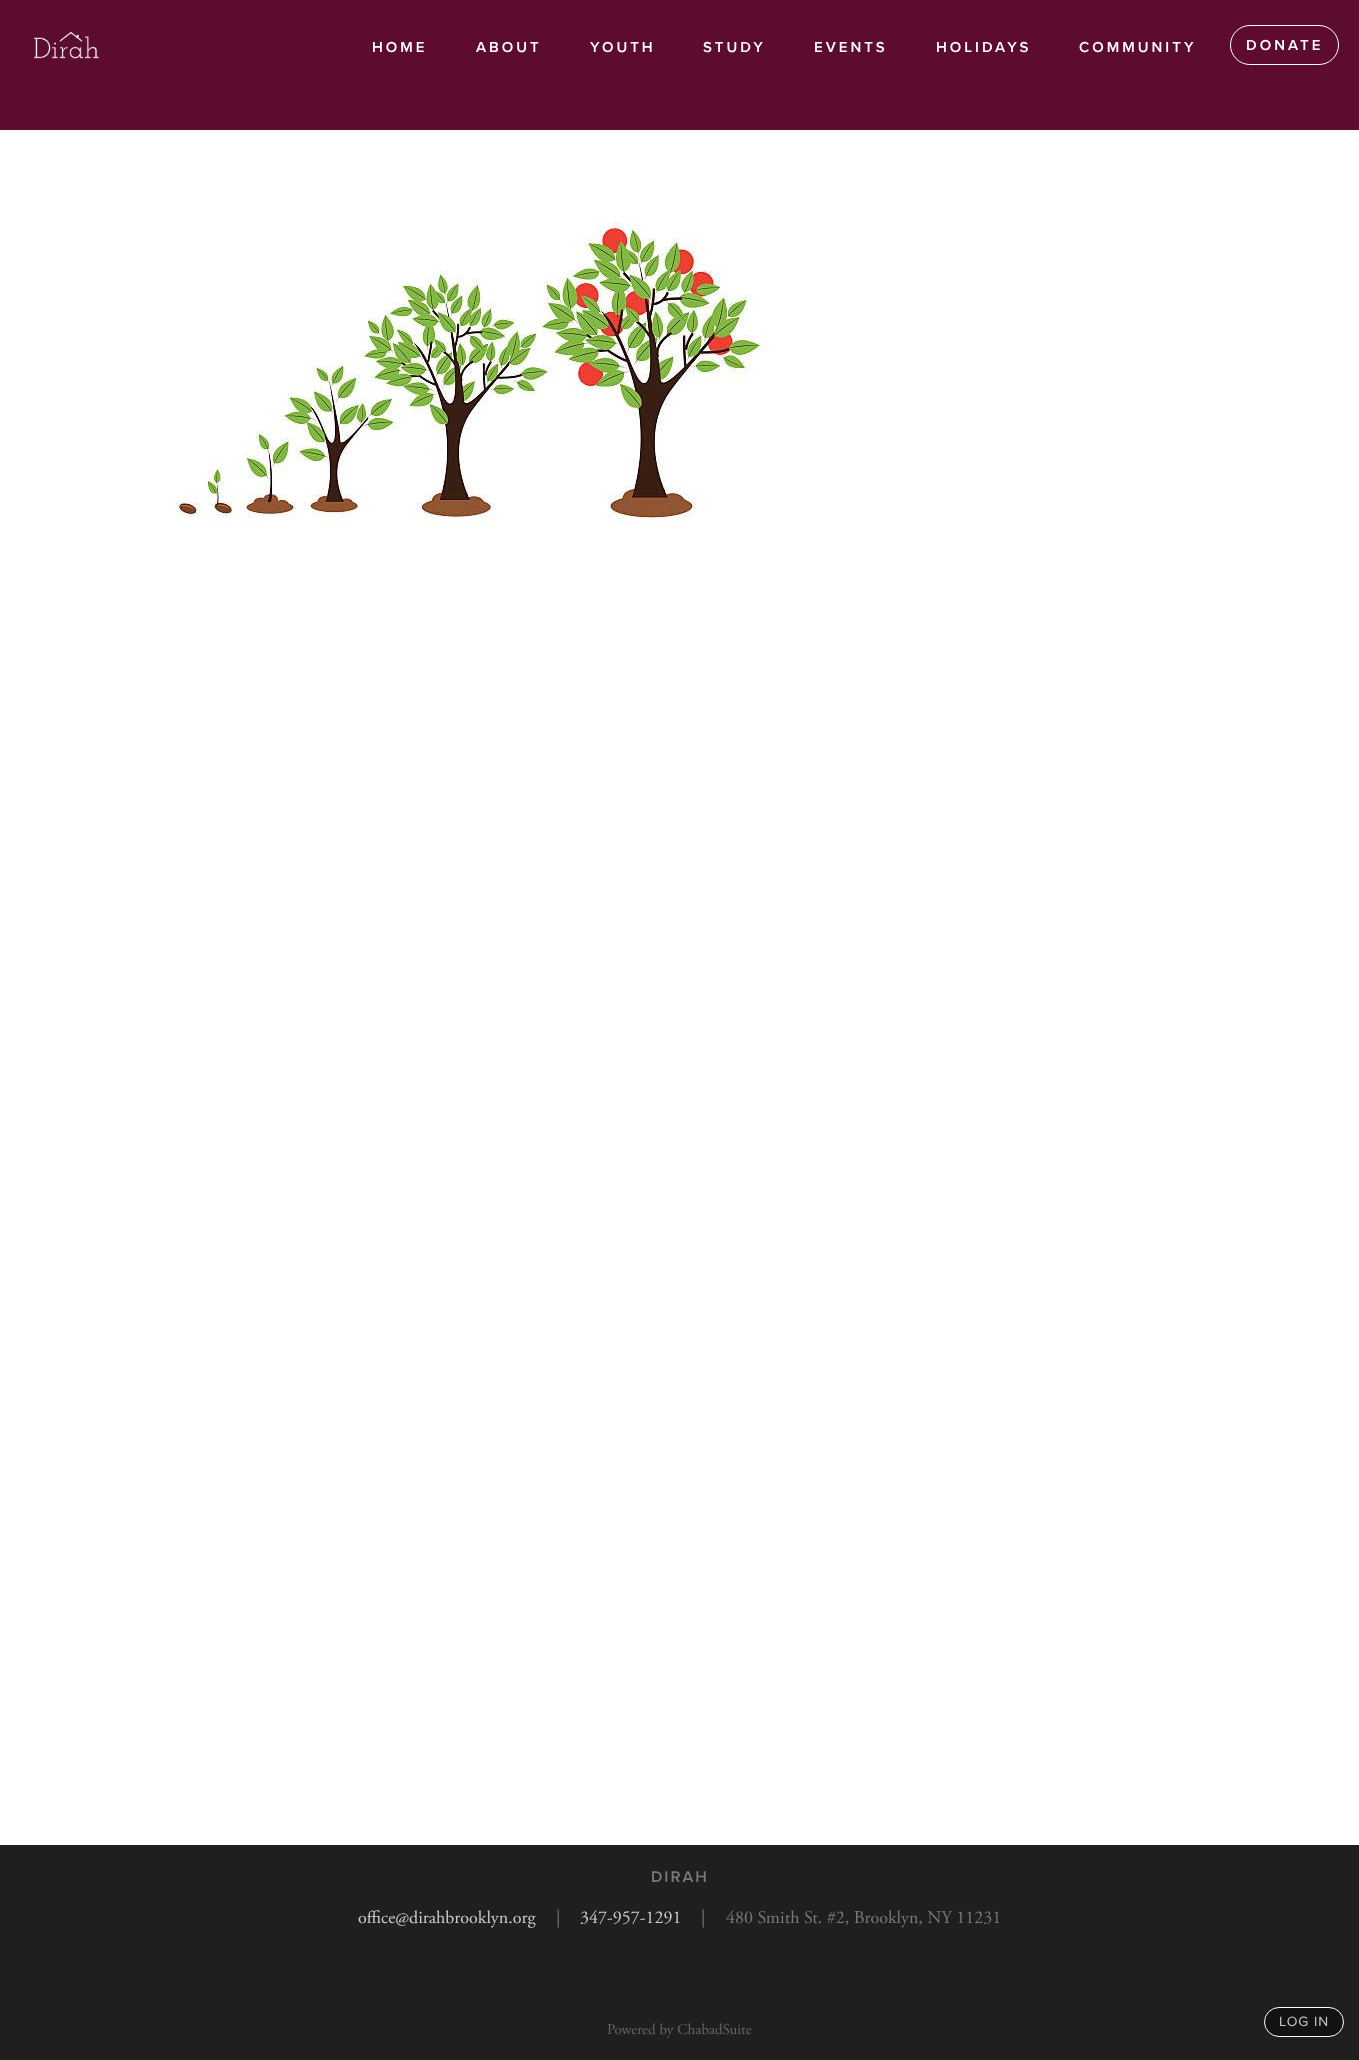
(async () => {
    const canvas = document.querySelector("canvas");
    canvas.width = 1359;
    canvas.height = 2060;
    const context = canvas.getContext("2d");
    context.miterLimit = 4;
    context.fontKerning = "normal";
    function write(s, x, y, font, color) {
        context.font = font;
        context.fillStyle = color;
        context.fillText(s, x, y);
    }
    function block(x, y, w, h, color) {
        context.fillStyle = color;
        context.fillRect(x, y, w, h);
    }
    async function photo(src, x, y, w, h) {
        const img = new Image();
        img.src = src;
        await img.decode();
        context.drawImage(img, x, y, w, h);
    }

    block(0, 0, 1359, 2060, "rgb(255, 255, 255)");
    block(0, 0, 1359, 130, "rgb(93, 11, 48)");
    await photo("media/1.png", 33, 31, 66, 28);
    context.letterSpacing = "3px";
    write("HOME", 372, 52, "600 15px Proxima Nova", "rgb(255, 255, 255)");
    write("ABOUT", 476, 52, "600 15px Proxima Nova", "rgb(255, 255, 255)");
    write("YOUTH", 590, 52, "600 15px Proxima Nova", "rgb(255, 255, 255)");
    write("STUDY", 703, 52, "600 15px Proxima Nova", "rgb(255, 255, 255)");
    write("EVENTS", 814, 52, "600 15px Proxima Nova", "rgb(255, 255, 255)");
    write("HOLIDAYS", 936, 52, "600 15px Proxima Nova", "rgb(255, 255, 255)");
    write("COMMUNITY", 1079, 52, "600 15px Proxima Nova", "rgb(255, 255, 255)");
    context.beginPath();
    context.roundRect(1230.5, 25.5, 108, 39, 19.5);
    context.strokeStyle = "rgb(255, 255, 255)";
    context.stroke();
    write("DONATE", 1246, 50, "600 15px Proxima Nova", "rgb(255, 255, 255)");
    await photo("media/2.png", 176, 222, 592, 304);
    block(0, 1845, 1359, 215, "rgb(31, 31, 31)");
    context.letterSpacing = "2px";
    write("DIRAH", 651, 1882, "600 16px Proxima Nova", "rgb(121, 121, 121)");
    context.letterSpacing = "0px";
    write("office@dirahbrooklyn.org", 358, 1923, "18px Adobe Garamond", "rgb(204, 204, 204)");
    write("|", 556, 1923, "18px Adobe Garamond", "rgb(121, 121, 121)");
    write("347-957-1291", 580, 1923, "18px Adobe Garamond", "rgb(204, 204, 204)");
    write("|", 701, 1923, "18px Adobe Garamond", "rgb(121, 121, 121)");
    write("480 Smith St. #2, Brooklyn, NY 11231", 726, 1923, "18px Adobe Garamond", "rgb(121, 121, 121)");
    context.fillStyle = "rgb(19, 19, 19)";
    context.beginPath();
    context.roundRect(1264.5, 2007.5, 79, 29, 14.5);
    context.fill();
    context.stroke();
    context.letterSpacing = "1px";
    write("LOG IN", 1279, 2026, "14px Proxima Nova", "rgb(204, 204, 204)");
    context.letterSpacing = "0px";
    write("Powered by ChabadSuite", 607, 2034, "15px Adobe Garamond", "rgb(102, 102, 102)");
})();
